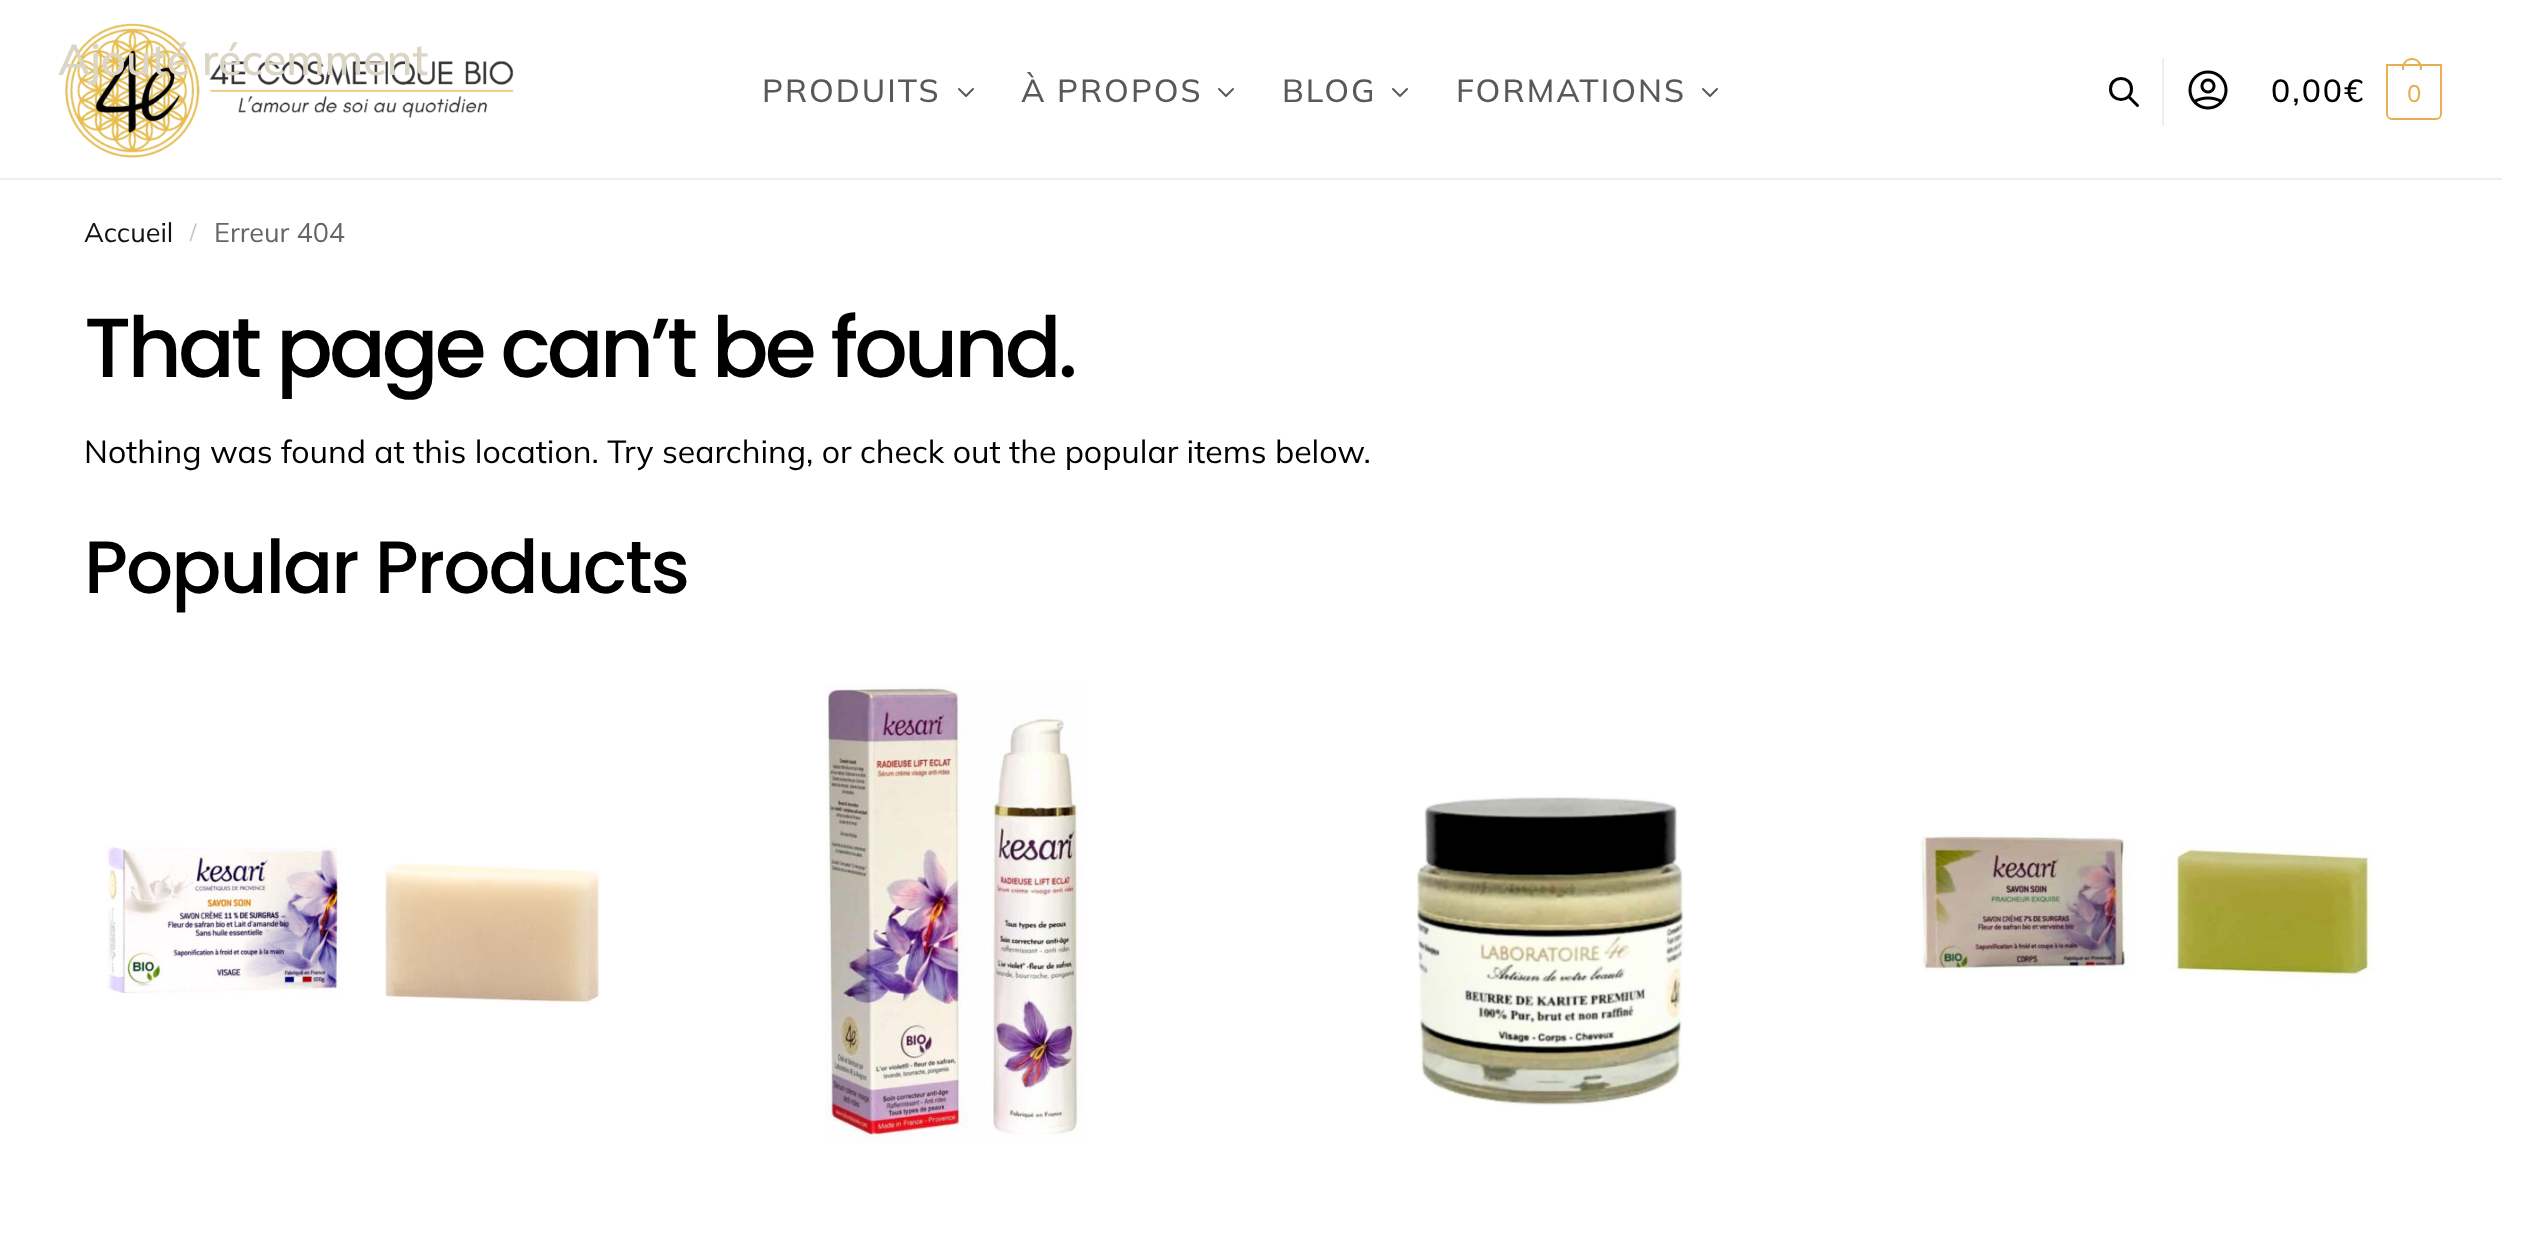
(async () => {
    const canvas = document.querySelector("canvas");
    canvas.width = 2532;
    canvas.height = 1248;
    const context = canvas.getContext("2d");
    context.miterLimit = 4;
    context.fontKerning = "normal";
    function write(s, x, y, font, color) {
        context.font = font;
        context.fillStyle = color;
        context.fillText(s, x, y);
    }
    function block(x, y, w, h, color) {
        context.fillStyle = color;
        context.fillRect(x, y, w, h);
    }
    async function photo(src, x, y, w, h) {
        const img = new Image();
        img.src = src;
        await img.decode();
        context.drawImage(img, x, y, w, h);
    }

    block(0, 0, 2532, 1248, "rgb(255, 255, 255)");
    block(0, 178, 2502, 2, "rgb(238, 238, 238)");
    await photo("media/1.png", 64, 23, 450, 135);
    write("Ajouté récemment", 58, 75, "600 43.25px Mulish", "rgb(219, 213, 198)");
    context.letterSpacing = "2px";
    write("PRODUITS", 762, 102, "500 32px Mulish", "rgb(89, 89, 89)");
    context.beginPath();
    context.moveTo(973, 89);
    context.lineTo(966, 96);
    context.lineTo(959, 89);
    context.strokeStyle = "rgb(89, 89, 89)";
    context.lineWidth = 2;
    context.lineCap = "round";
    context.lineJoin = "round";
    context.stroke();
    write("À PROPOS", 1021, 102, "500 32px Mulish", "rgb(89, 89, 89)");
    context.beginPath();
    context.moveTo(1233, 89);
    context.lineTo(1226, 96);
    context.lineTo(1219, 89);
    context.stroke();
    write("BLOG", 1282, 102, "500 32px Mulish", "rgb(89, 89, 89)");
    context.beginPath();
    context.moveTo(1407, 89);
    context.lineTo(1400, 96);
    context.lineTo(1393, 89);
    context.stroke();
    write("FORMATIONS", 1456, 102, "500 32px Mulish", "rgb(89, 89, 89)");
    context.beginPath();
    context.moveTo(1717, 89);
    context.lineTo(1710, 96);
    context.lineTo(1703, 89);
    context.stroke();
    context.beginPath();
    context.moveTo(2137.5, 105.5);
    context.lineTo(2128.5, 96.5);
    context.moveTo(2131.5, 89);
    context.bezierCurveTo(2131.5, 103, 2110.5, 103, 2110.5, 89);
    context.bezierCurveTo(2110.5, 75, 2131.5, 75, 2131.5, 89);
    context.closePath();
    context.strokeStyle = "rgb(0, 0, 0)";
    context.lineWidth = 3;
    context.stroke();
    block(2162, 58, 2, 68, "rgb(238, 238, 238)");
    await photo("media/2.png", 2188, 70, 40, 40);
    write("0,00€", 2271, 102, "500 32px Mulish", "rgb(0, 0, 0)");
    context.beginPath();
    context.roundRect(2387, 65, 54, 54, [0, 0, 5, 5]);
    context.strokeStyle = "rgb(231, 176, 83)";
    context.lineWidth = 2;
    context.lineJoin = "miter";
    context.stroke();
    context.fillStyle = "rgb(231, 176, 83)";
    context.beginPath();
    context.moveTo(2412, 58);
    context.bezierCurveTo(2417.5, 58, 2422, 62.5, 2422, 68);
    context.lineTo(2422, 70);
    context.lineTo(2402, 70);
    context.lineTo(2402, 68);
    context.bezierCurveTo(2402, 62.5, 2406.5, 58, 2412, 58);
    context.closePath();
    context.moveTo(2412, 60);
    context.bezierCurveTo(2418, 60, 2420, 65, 2420, 70);
    context.lineTo(2404, 70);
    context.bezierCurveTo(2404, 65, 2406, 60, 2412, 60);
    context.closePath();
    context.fill("evenodd");
    context.letterSpacing = "-1px";
    write("0", 2407, 102, "500 24px Mulish", "rgb(231, 176, 83)");
    context.letterSpacing = "0px";
    write("Accueil", 84, 242, "27px Mulish", "rgb(17, 17, 17)");
    write("/", 190, 240, "22px Mulish", "rgb(194, 194, 194)");
    write("Erreur 404", 214, 242, "27px Mulish", "rgb(102, 102, 102)");
    context.letterSpacing = "-4px";
    write("That page can’t be found.", 84, 377, "500 84px Poppins", "rgb(0, 0, 0)");
    context.letterSpacing = "0px";
    write("Nothing was found at this location. Try searching, or check out the popular items below.", 84, 463, "32px Mulish", "rgb(0, 0, 0)");
    context.letterSpacing = "-2px";
    write("Popular Products", 84, 593, "500 74px Poppins", "rgb(0, 0, 0)");
    await photo("media/3.png", 106, 846, 494, 160);
    await photo("media/4.png", 825, 685, 259, 459);
    await photo("media/5.png", 1415, 796, 269, 310);
    await photo("media/6.png", 1920, 831, 457, 155);
})();
